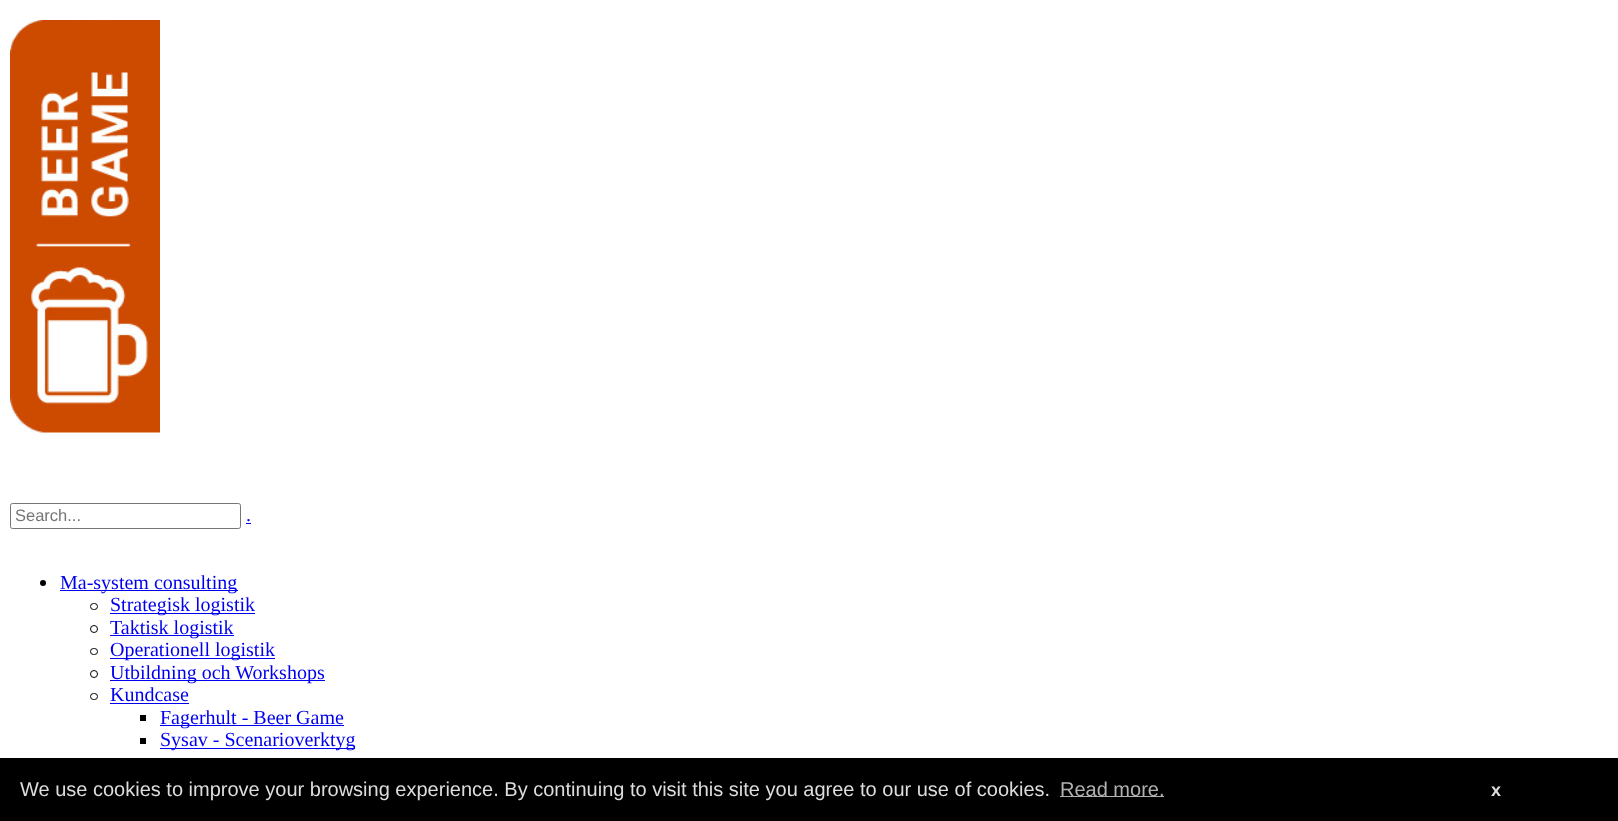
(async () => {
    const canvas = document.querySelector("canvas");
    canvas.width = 1618;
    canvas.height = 821;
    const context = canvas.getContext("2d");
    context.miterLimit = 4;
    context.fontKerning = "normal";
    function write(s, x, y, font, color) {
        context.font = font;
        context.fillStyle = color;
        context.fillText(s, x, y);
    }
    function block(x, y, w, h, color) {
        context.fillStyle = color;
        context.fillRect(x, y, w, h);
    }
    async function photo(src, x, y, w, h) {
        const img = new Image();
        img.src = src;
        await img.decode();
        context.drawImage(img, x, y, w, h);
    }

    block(0, 0, 1618, 821, "rgb(255, 255, 255)");
    await photo("media/1.png", 10, 20, 150, 413);
    context.beginPath();
    context.roundRect(10.5, 503.5, 230, 25, 2);
    context.strokeStyle = "rgb(118, 118, 118)";
    context.stroke();
    write("Search...", 15, 521, "16.5px Liberation Sans", "rgb(117, 117, 117)");
    write(".", 246, 521, "20px Liberation Serif", "rgb(0, 0, 238)");
    block(246, 523, 5, 1, "rgb(0, 0, 238)");
    context.fillStyle = "rgb(0, 0, 0)";
    context.beginPath();
    context.arc(43, 583, 3, 0, Math.PI * 2);
    context.fill();
    block(60, 590, 178, 1, "rgb(0, 0, 238)");
    write("Ma-system consulting", 60, 589, "20px Liberation Serif", "rgb(0, 0, 238)");
    context.beginPath();
    context.roundRect(90.5, 603.5, 7, 6, 3);
    context.strokeStyle = "rgb(0, 0, 0)";
    context.stroke();
    block(110, 613, 145, 1, "rgb(0, 0, 238)");
    write("Strategisk logistik", 110, 611, "20px Liberation Serif", "rgb(0, 0, 238)");
    context.beginPath();
    context.arc(94, 629, 3.5, 0, Math.PI * 2);
    context.stroke();
    block(110, 635, 124, 1, "rgb(0, 0, 238)");
    write("Taktisk logistik", 110, 634, "20px Liberation Serif", "rgb(0, 0, 238)");
    context.beginPath();
    context.roundRect(90.5, 648.5, 7, 6, 3);
    context.stroke();
    block(110, 658, 165, 1, "rgb(0, 0, 238)");
    write("Operationell logistik", 110, 656, "20px Liberation Serif", "rgb(0, 0, 238)");
    context.beginPath();
    context.arc(94, 674, 3.5, 0, Math.PI * 2);
    context.stroke();
    block(110, 680, 215, 1, "rgb(0, 0, 238)");
    write("Utbildning och Workshops", 110, 679, "20px Liberation Serif", "rgb(0, 0, 238)");
    context.beginPath();
    context.roundRect(90.5, 693.5, 7, 6, 3);
    context.stroke();
    write("Kundcase", 110, 701, "20px Liberation Serif", "rgb(0, 0, 238)");
    block(110, 703, 79, 1, "rgb(0, 0, 238)");
    block(140, 715, 6, 6, "rgb(0, 0, 0)");
    block(160, 725, 184, 1, "rgb(0, 0, 238)");
    write("Fagerhult - Beer Game", 160, 724, "20px Liberation Serif", "rgb(0, 0, 238)");
    block(140, 738, 6, 6, "rgb(0, 0, 0)");
    block(160, 748, 195, 1, "rgb(0, 0, 238)");
    write("Sysav - Scenarioverktyg", 160, 746, "20px Liberation Serif", "rgb(0, 0, 238)");
    block(0, 758, 1618, 63, "rgb(0, 0, 0)");
    write("We use cookies to improve your browsing experience. By continuing to visit this site you agree to our use of cookies.", 20, 796, "20px Liberation Sans", "rgb(221, 221, 221)");
    block(1060, 796, 104, 1, "rgb(177, 177, 177)");
    write("Read more.", 1060, 796, "20px Liberation Sans", "rgb(177, 177, 177)");
    write("x", 1491, 796, "bold 18px Liberation Sans", "rgb(221, 221, 221)");
})();
